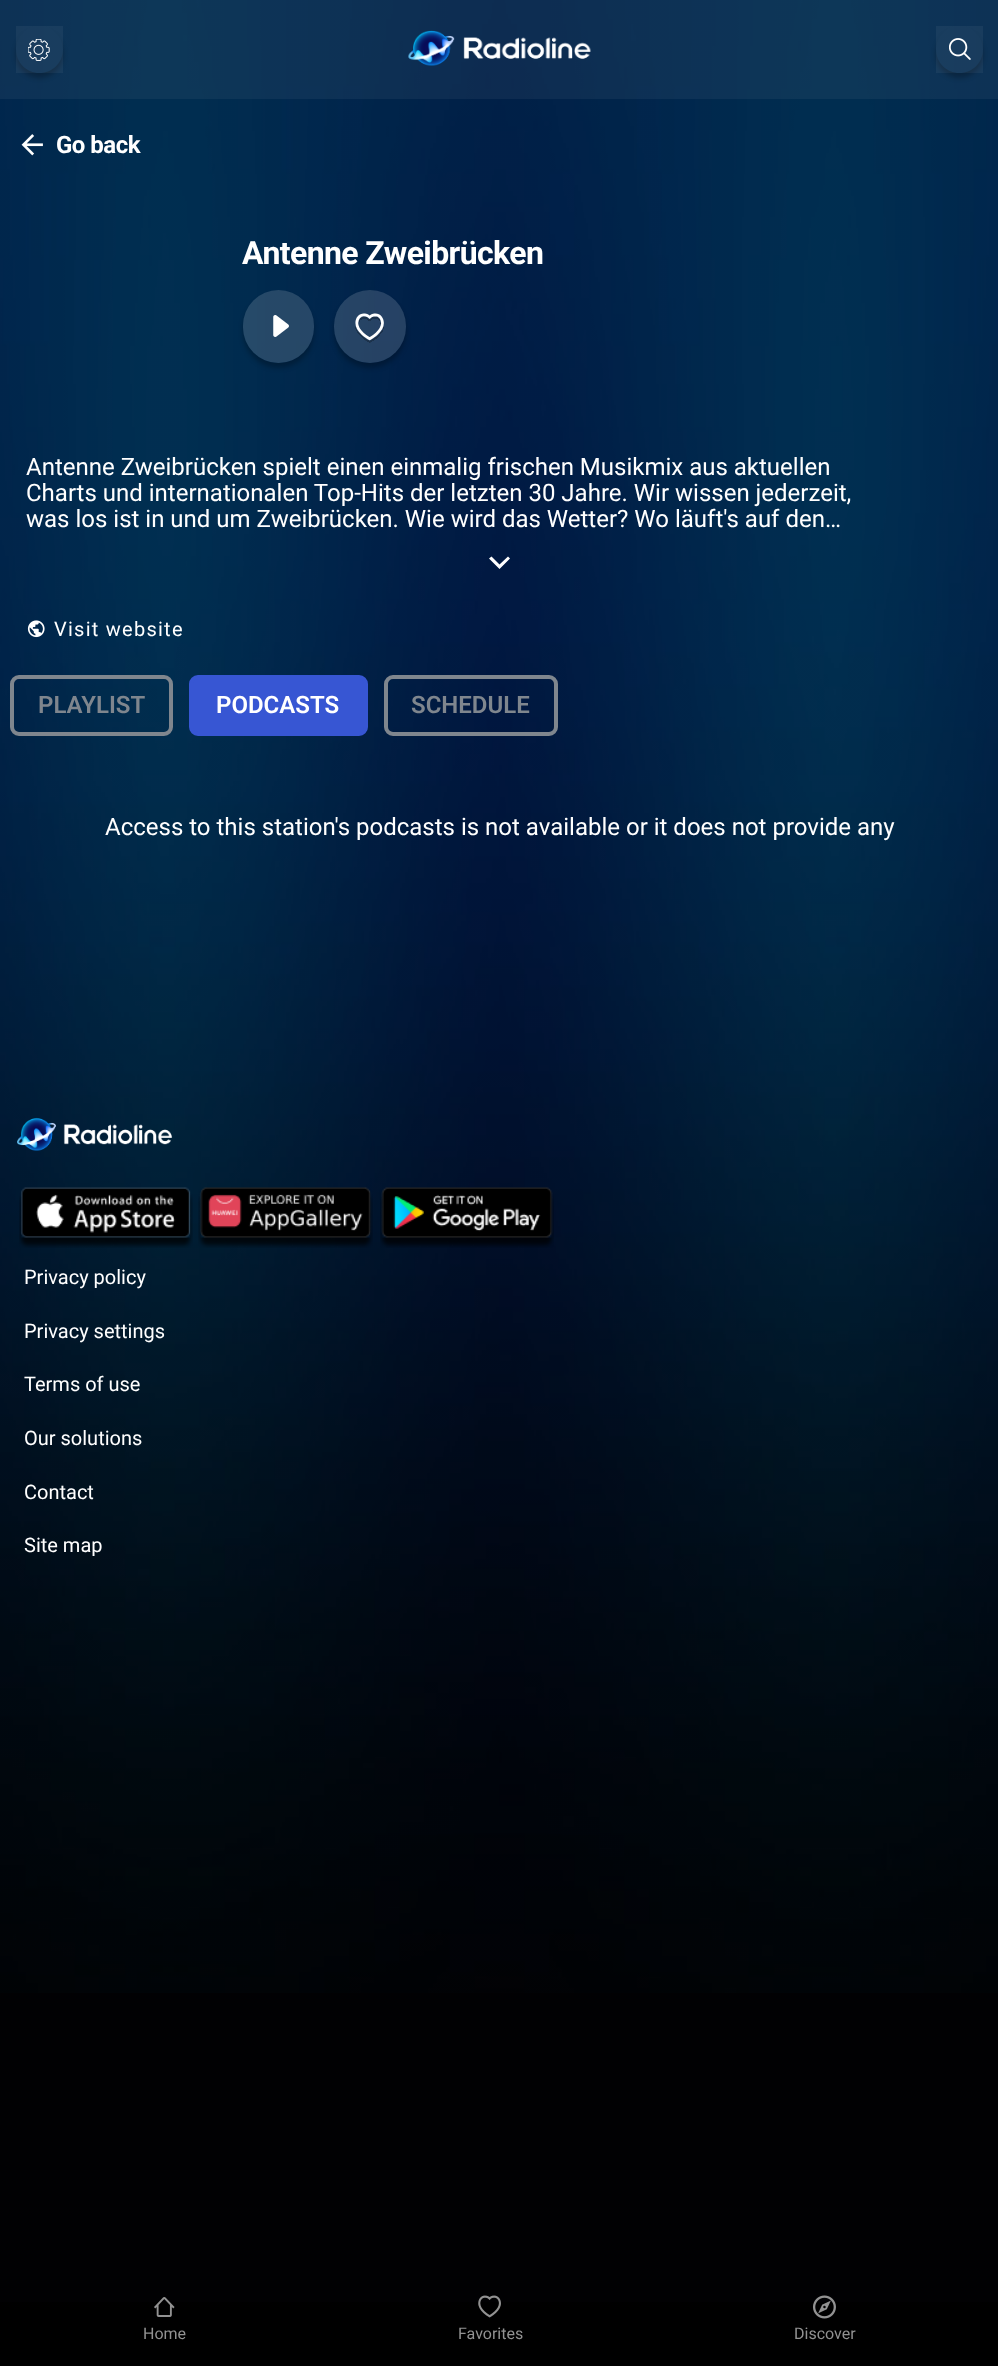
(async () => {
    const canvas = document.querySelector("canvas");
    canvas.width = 998;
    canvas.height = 2366;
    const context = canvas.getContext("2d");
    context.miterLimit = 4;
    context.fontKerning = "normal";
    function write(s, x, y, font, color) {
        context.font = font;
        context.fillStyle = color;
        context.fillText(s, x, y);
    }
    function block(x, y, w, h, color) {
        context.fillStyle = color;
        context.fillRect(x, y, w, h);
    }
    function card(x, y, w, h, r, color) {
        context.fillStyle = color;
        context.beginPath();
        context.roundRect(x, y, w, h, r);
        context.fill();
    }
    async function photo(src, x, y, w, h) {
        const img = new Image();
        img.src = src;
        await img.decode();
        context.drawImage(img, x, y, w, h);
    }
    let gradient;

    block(0, 0, 998, 2366, "rgb(1, 1, 3)");
    await photo("media/1.png", 0, 0, 998, 1993);
    block(0, 0, 998, 99, "rgba(255, 255, 255, 0.05)");
    context.save();
    context.beginPath();
    context.moveTo(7, 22);
    context.lineTo(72, 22);
    context.lineTo(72, 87);
    context.lineTo(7, 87);
    context.closePath();
    context.moveTo(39.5, 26);
    context.bezierCurveTo(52.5, 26, 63, 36.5, 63, 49.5);
    context.bezierCurveTo(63, 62.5, 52.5, 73, 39.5, 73);
    context.bezierCurveTo(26.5, 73, 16, 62.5, 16, 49.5);
    context.bezierCurveTo(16, 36.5, 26.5, 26, 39.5, 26);
    context.closePath();
    context.clip("evenodd");
    context.fillStyle = "rgba(0, 0, 0, 0.25)";
    context.filter = "blur(2.5px)";
    context.beginPath();
    context.roundRect(16, 31, 47, 47, 23.5);
    context.fill();
    context.filter = "none";
    context.restore();
    block(16, 26, 47, 47, "rgba(255, 255, 255, 0.05)");
    await photo("media/2.png", 28, 39, 22, 22);
    await photo("media/3.png", 408, 30, 183, 36);
    context.save();
    context.beginPath();
    context.moveTo(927, 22);
    context.lineTo(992, 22);
    context.lineTo(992, 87);
    context.lineTo(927, 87);
    context.closePath();
    context.moveTo(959.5, 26);
    context.bezierCurveTo(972.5, 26, 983, 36.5, 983, 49.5);
    context.bezierCurveTo(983, 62.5, 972.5, 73, 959.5, 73);
    context.bezierCurveTo(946.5, 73, 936, 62.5, 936, 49.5);
    context.bezierCurveTo(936, 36.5, 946.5, 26, 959.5, 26);
    context.closePath();
    context.clip("evenodd");
    context.fillStyle = "rgba(0, 0, 0, 0.25)";
    context.filter = "blur(2.5px)";
    context.beginPath();
    context.roundRect(936, 31, 47, 47, 23.5);
    context.fill();
    context.filter = "none";
    context.restore();
    block(936, 26, 47, 47, "rgba(255, 255, 255, 0.05)");
    await photo("media/4.png", 949, 38, 22, 22);
    await photo("media/5.png", 21, 134, 22, 22);
    context.letterSpacing = "-0.5px";
    write("Go back", 56, 153, "bold 24px Roboto", "rgb(255, 255, 255)");
    context.letterSpacing = "-0.6px";
    write("Antenne Zweibrücken", 242, 264, "bold 32px Roboto", "rgb(255, 255, 255)");
    context.save();
    context.beginPath();
    context.moveTo(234, 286);
    context.lineTo(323, 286);
    context.lineTo(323, 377);
    context.lineTo(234, 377);
    context.closePath();
    context.moveTo(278.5, 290);
    context.bezierCurveTo(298, 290, 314, 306, 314, 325.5);
    context.lineTo(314, 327.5);
    context.bezierCurveTo(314, 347, 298, 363, 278.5, 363);
    context.bezierCurveTo(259, 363, 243, 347, 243, 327.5);
    context.lineTo(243, 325.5);
    context.bezierCurveTo(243, 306, 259, 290, 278.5, 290);
    context.closePath();
    context.clip("evenodd");
    context.fillStyle = "rgba(0, 0, 0, 0.25)";
    context.filter = "blur(2.5px)";
    context.beginPath();
    context.roundRect(243, 295, 71, 73, 35.5);
    context.fill();
    context.filter = "none";
    context.restore();
    card(243, 290, 71, 73, 35.5, "rgba(255, 255, 255, 0.15)");
    await photo("media/6.png", 273, 315, 16, 22);
    context.save();
    context.beginPath();
    context.moveTo(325, 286);
    context.lineTo(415, 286);
    context.lineTo(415, 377);
    context.lineTo(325, 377);
    context.closePath();
    context.moveTo(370, 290);
    context.bezierCurveTo(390, 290, 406, 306, 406, 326);
    context.lineTo(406, 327);
    context.bezierCurveTo(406, 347, 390, 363, 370, 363);
    context.bezierCurveTo(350, 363, 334, 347, 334, 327);
    context.lineTo(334, 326);
    context.bezierCurveTo(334, 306, 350, 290, 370, 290);
    context.closePath();
    context.clip("evenodd");
    context.fillStyle = "rgba(0, 0, 0, 0.25)";
    context.filter = "blur(2.5px)";
    context.beginPath();
    context.roundRect(334, 295, 72, 73, 36);
    context.fill();
    context.filter = "none";
    context.restore();
    card(334, 290, 72, 73, 36, "rgba(255, 255, 255, 0.15)");
    await photo("media/7.png", 355, 313, 29, 30);
    context.letterSpacing = "0px";
    write("Antenne Zweibrücken spielt einen einmalig frischen Musikmix aus aktuellen", 26, 475, "24px Roboto", "rgb(255, 255, 255)");
    write("Charts und internationalen Top-Hits der letzten 30 Jahre. Wir wissen jederzeit,", 26, 501, "24px Roboto", "rgb(255, 255, 255)");
    write("was los ist in und um Zweibrücken. Wie wird das Wetter? Wo läuft's auf den…", 26, 527, "24px Roboto", "rgb(255, 255, 255)");
    context.beginPath();
    context.moveTo(491.5, 556.5);
    context.lineTo(499.5, 564.5);
    context.lineTo(508, 556.5);
    context.lineTo(510, 558.5);
    context.lineTo(499.5, 569);
    context.lineTo(489, 558.5);
    context.closePath();
    context.fill();
    await photo("media/8.png", 27, 620, 18, 18);
    context.letterSpacing = "1.25px";
    write("Visit website", 54, 636, "20px Roboto", "rgb(255, 255, 255)");
    context.beginPath();
    context.roundRect(12, 677, 159, 57, 7);
    context.strokeStyle = "rgb(127, 134, 142)";
    context.lineWidth = 4;
    context.stroke();
    context.letterSpacing = "0px";
    write("PLAYLIST", 38, 713, "600 24px Roboto", "rgb(127, 134, 142)");
    context.fillStyle = "rgb(55, 86, 211)";
    context.beginPath();
    context.roundRect(191, 677, 175, 57, 7);
    context.fill();
    context.strokeStyle = "rgb(55, 86, 211)";
    context.stroke();
    write("PODCASTS", 216, 713, "600 24px Roboto", "rgb(255, 255, 255)");
    context.beginPath();
    context.roundRect(386, 677, 170, 57, 7);
    context.strokeStyle = "rgb(127, 134, 142)";
    context.stroke();
    write("SCHEDULE", 411, 713, "600 24px Roboto", "rgb(127, 134, 142)");
    write("Access to this station's podcasts is not available or it does not provide any", 105, 835, "24px Roboto", "rgb(255, 255, 255)");
    await photo("media/9.png", 17, 1117, 156, 34);
    await photo("media/10.png", 19, 1187, 174, 61);
    await photo("media/11.png", 198, 1187, 175, 61);
    await photo("media/12.png", 380, 1187, 174, 61);
    write("Privacy policy", 24, 1284, "20px Roboto", "rgb(255, 255, 255)");
    write("Privacy settings", 24, 1338, "20px Roboto", "rgb(255, 255, 255)");
    write("Terms of use", 24, 1391, "20px Roboto", "rgb(255, 255, 255)");
    write("Our solutions", 24, 1445, "20px Roboto", "rgb(255, 255, 255)");
    write("Contact", 24, 1499, "20px Roboto", "rgb(255, 255, 255)");
    write("Site map", 24, 1552, "20px Roboto", "rgb(255, 255, 255)");
    gradient = context.createLinearGradient(499, 2226, 499, 2366);
    gradient.addColorStop(0, "rgb(1, 1, 3)");
    gradient.addColorStop(0.09, "rgb(1, 1, 3)");
    gradient.addColorStop(0.12, "rgb(1, 1, 2)");
    gradient.addColorStop(0.23, "rgb(1, 1, 2)");
    gradient.addColorStop(0.28, "rgb(0, 0, 1)");
    gradient.addColorStop(0.49, "rgb(0, 0, 1)");
    gradient.addColorStop(0.59, "rgb(0, 0, 0)");
    gradient.addColorStop(1, "rgb(0, 0, 0)");
    context.fillStyle = gradient;
    context.fillRect(0, 2302, 998, 64);
    await photo("media/13.png", 154, 2297, 21, 20);
    write("Home", 143, 2339, "16px Roboto", "rgb(146, 146, 146)");
    await photo("media/14.png", 478, 2295, 23, 23);
    write("Favorites", 458, 2339, "16px Roboto", "rgb(146, 146, 146)");
    await photo("media/15.png", 813, 2295, 23, 24);
    write("Discover", 794, 2339, "16px Roboto", "rgb(146, 146, 146)");
})();
